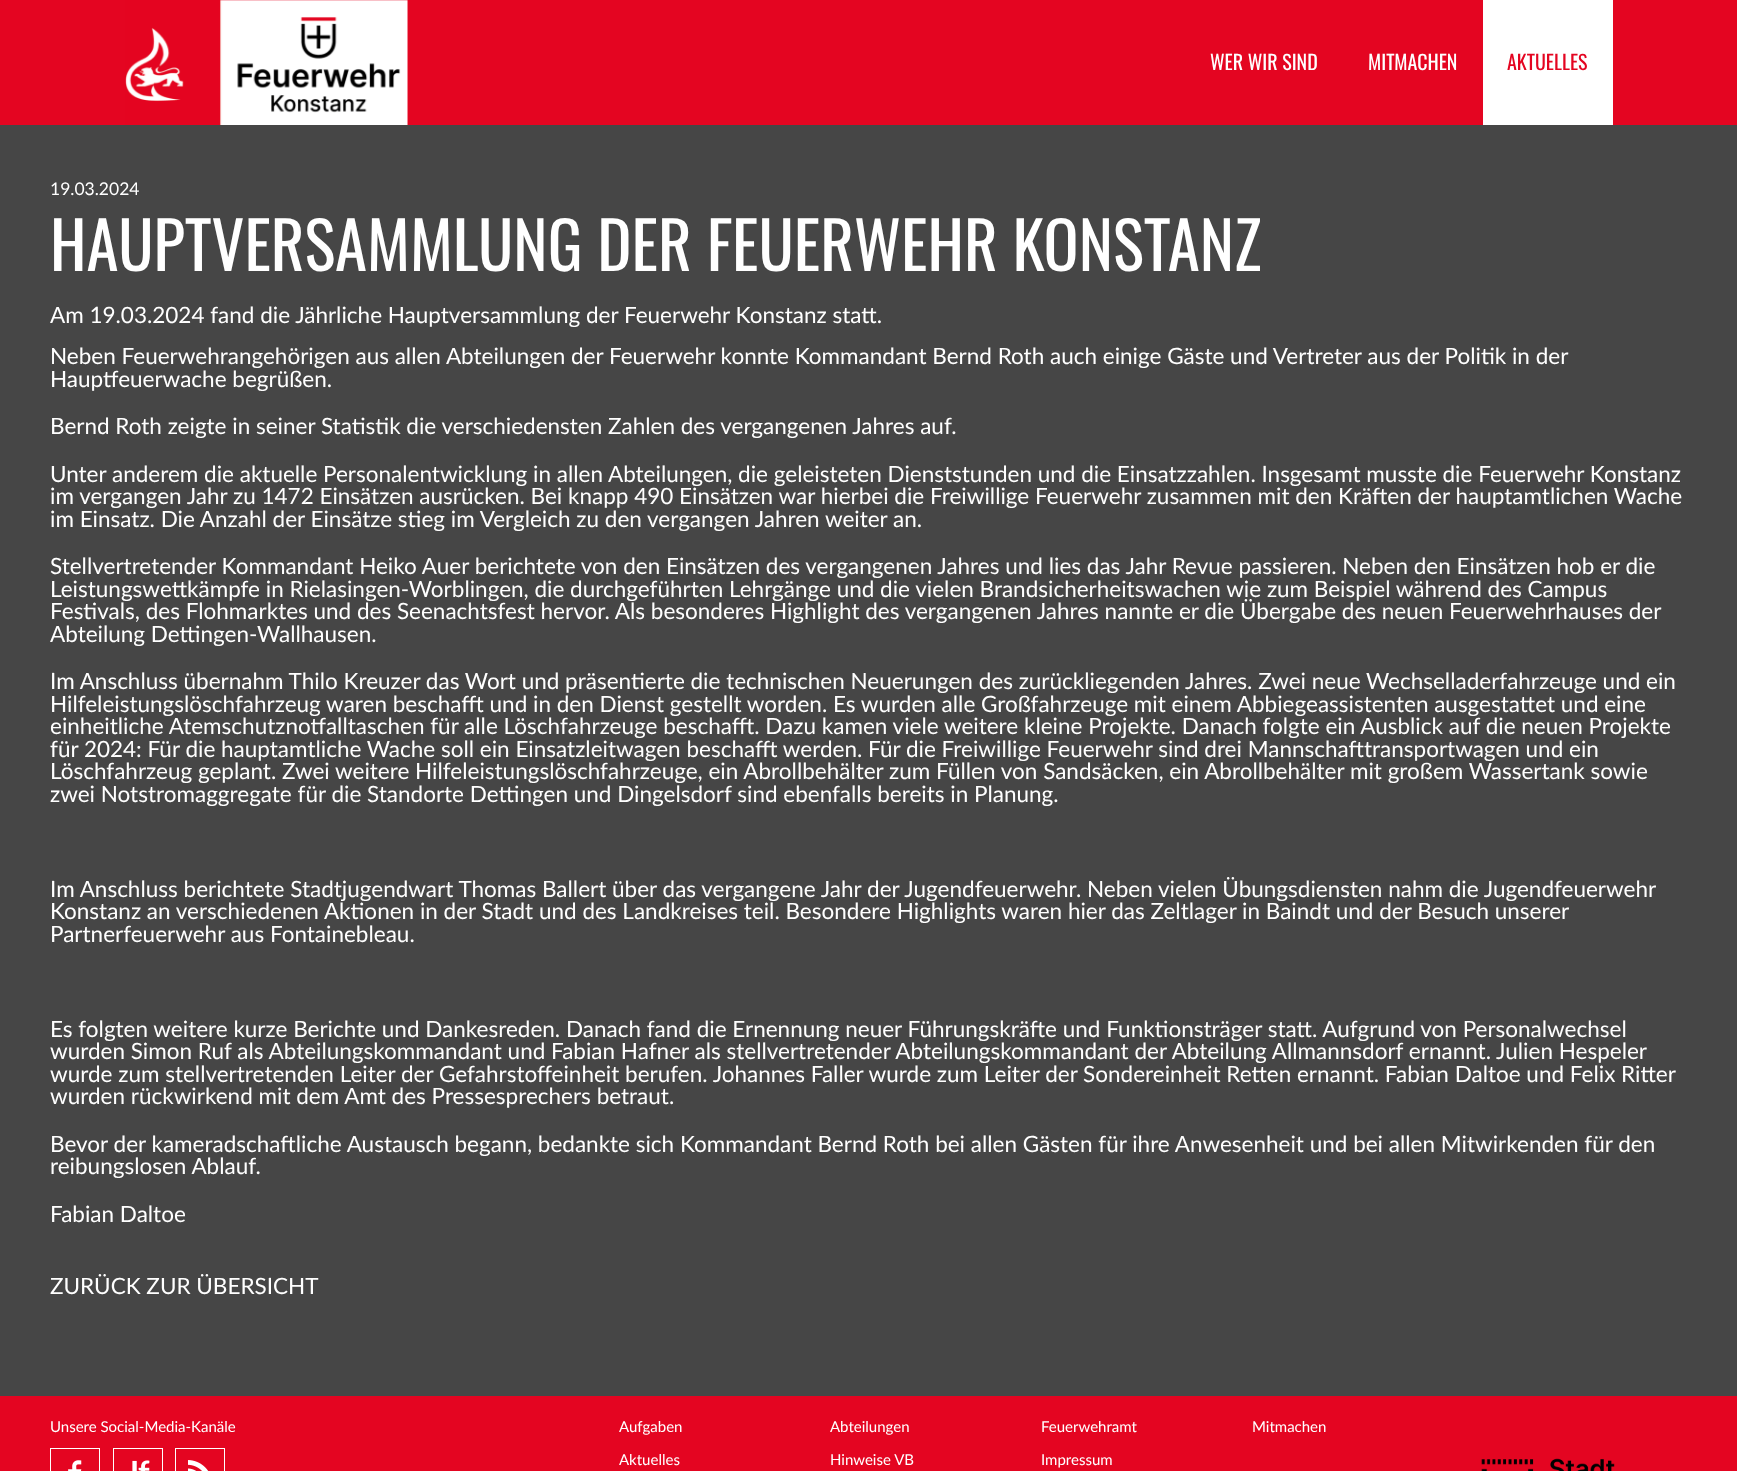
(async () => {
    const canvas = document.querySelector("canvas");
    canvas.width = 1737;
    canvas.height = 1471;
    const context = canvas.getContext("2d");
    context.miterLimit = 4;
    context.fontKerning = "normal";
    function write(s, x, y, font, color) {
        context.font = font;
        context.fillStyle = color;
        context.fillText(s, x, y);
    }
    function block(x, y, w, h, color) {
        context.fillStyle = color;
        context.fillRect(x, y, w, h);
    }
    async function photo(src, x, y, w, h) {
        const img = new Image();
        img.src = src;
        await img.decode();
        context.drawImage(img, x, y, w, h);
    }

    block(0, 0, 1737, 1471, "rgb(70, 70, 70)");
    block(0, 0, 1737, 125, "rgb(228, 5, 33)");
    await photo("media/1.png", 125, 0, 283, 125);
    write("WER WIR SIND", 1210, 70, "20px Oswald", "rgb(255, 255, 255)");
    write("MITMACHEN", 1368, 70, "20px Oswald", "rgb(255, 255, 255)");
    block(1483, 0, 130, 125, "rgb(255, 255, 255)");
    write("AKTUELLES", 1507, 70, "20px Oswald", "rgb(228, 5, 33)");
    write("19.03.2024", 50, 195, "17.5px Lato", "rgb(255, 255, 255)");
    write("HAUPTVERSAMMLUNG DER FEUERWEHR KONSTANZ", 50, 271, "65px Oswald", "rgb(255, 255, 255)");
    write("Am 19.03.2024 fand die Jährliche Hauptversammlung der Feuerwehr Konstanz statt.", 50, 323, "22.5px Lato", "rgb(255, 255, 255)");
    write("Neben Feuerwehrangehörigen aus allen Abteilungen der Feuerwehr konnte Kommandant Bernd Roth auch einige Gäste und Vertreter aus der Politik in der", 50, 364, "22.5px Lato", "rgb(255, 255, 255)");
    write("Hauptfeuerwache begrüßen.", 50, 387, "22.5px Lato", "rgb(255, 255, 255)");
    write("Bernd Roth zeigte in seiner Statistik die verschiedensten Zahlen des vergangenen Jahres auf.", 50, 434, "22.5px Lato", "rgb(255, 255, 255)");
    write("Unter anderem die aktuelle Personalentwicklung in allen Abteilungen, die geleisteten Dienststunden und die Einsatzzahlen. Insgesamt musste die Feuerwehr Konstanz", 50, 482, "22.5px Lato", "rgb(255, 255, 255)");
    write("im vergangen Jahr zu 1472 Einsätzen ausrücken. Bei knapp 490 Einsätzen war hierbei die Freiwillige Feuerwehr zusammen mit den Kräften der hauptamtlichen Wache", 50, 504, "22.5px Lato", "rgb(255, 255, 255)");
    write("im Einsatz. Die Anzahl der Einsätze stieg im Vergleich zu den vergangen Jahren weiter an.", 50, 527, "22.5px Lato", "rgb(255, 255, 255)");
    write("Stellvertretender Kommandant Heiko Auer berichtete von den Einsätzen des vergangenen Jahres und lies das Jahr Revue passieren. Neben den Einsätzen hob er die", 50, 574, "22.5px Lato", "rgb(255, 255, 255)");
    write("Leistungswettkämpfe in Rielasingen-Worblingen, die durchgeführten Lehrgänge und die vielen Brandsicherheitswachen wie zum Beispiel während des Campus", 50, 597, "22.5px Lato", "rgb(255, 255, 255)");
    write("Festivals, des Flohmarktes und des Seenachtsfest hervor. Als besonderes Highlight des vergangenen Jahres nannte er die Übergabe des neuen Feuerwehrhauses der", 50, 619, "22.5px Lato", "rgb(255, 255, 255)");
    write("Abteilung Dettingen-Wallhausen.", 50, 642, "22.5px Lato", "rgb(255, 255, 255)");
    write("Im Anschluss übernahm Thilo Kreuzer das Wort und präsentierte die technischen Neuerungen des zurückliegenden Jahres. Zwei neue Wechselladerfahrzeuge und ein", 50, 689, "22.5px Lato", "rgb(255, 255, 255)");
    write("Hilfeleistungslöschfahrzeug waren beschafft und in den Dienst gestellt worden. Es wurden alle Großfahrzeuge mit einem Abbiegeassistenten ausgestattet und eine", 50, 712, "22.5px Lato", "rgb(255, 255, 255)");
    write("einheitliche Atemschutznotfalltaschen für alle Löschfahrzeuge beschafft. Dazu kamen viele weitere kleine Projekte. Danach folgte ein Ausblick auf die neuen Projekte", 50, 734, "22.5px Lato", "rgb(255, 255, 255)");
    write("für 2024: Für die hauptamtliche Wache soll ein Einsatzleitwagen beschafft werden. Für die Freiwillige Feuerwehr sind drei Mannschafttransportwagen und ein", 50, 757, "22.5px Lato", "rgb(255, 255, 255)");
    write("Löschfahrzeug geplant. Zwei weitere Hilfeleistungslöschfahrzeuge, ein Abrollbehälter zum Füllen von Sandsäcken, ein Abrollbehälter mit großem Wassertank sowie", 50, 779, "22.5px Lato", "rgb(255, 255, 255)");
    write("zwei Notstromaggregate für die Standorte Dettingen und Dingelsdorf sind ebenfalls bereits in Planung.", 50, 802, "22.5px Lato", "rgb(255, 255, 255)");
    write("Im Anschluss berichtete Stadtjugendwart Thomas Ballert über das vergangene Jahr der Jugendfeuerwehr. Neben vielen Übungsdiensten nahm die Jugendfeuerwehr", 50, 897, "22.5px Lato", "rgb(255, 255, 255)");
    write("Konstanz an verschiedenen Aktionen in der Stadt und des Landkreises teil. Besondere Highlights waren hier das Zeltlager in Baindt und der Besuch unserer", 50, 919, "22.5px Lato", "rgb(255, 255, 255)");
    write("Partnerfeuerwehr aus Fontainebleau.", 50, 942, "22.5px Lato", "rgb(255, 255, 255)");
    write("Es folgten weitere kurze Berichte und Dankesreden. Danach fand die Ernennung neuer Führungskräfte und Funktionsträger statt. Aufgrund von Personalwechsel", 50, 1037, "22.5px Lato", "rgb(255, 255, 255)");
    write("wurden Simon Ruf als Abteilungskommandant und Fabian Hafner als stellvertretender Abteilungskommandant der Abteilung Allmannsdorf ernannt. Julien Hespeler", 50, 1059, "22.5px Lato", "rgb(255, 255, 255)");
    write("wurde zum stellvertretenden Leiter der Gefahrstoffeinheit berufen. Johannes Faller wurde zum Leiter der Sondereinheit Retten ernannt. Fabian Daltoe und Felix Ritter", 50, 1082, "22.5px Lato", "rgb(255, 255, 255)");
    write("wurden rückwirkend mit dem Amt des Pressesprechers betraut.", 50, 1104, "22.5px Lato", "rgb(255, 255, 255)");
    write("Bevor der kameradschaftliche Austausch begann, bedankte sich Kommandant Bernd Roth bei allen Gästen für ihre Anwesenheit und bei allen Mitwirkenden für den", 50, 1152, "22.5px Lato", "rgb(255, 255, 255)");
    write("reibungslosen Ablauf.", 50, 1174, "22.5px Lato", "rgb(255, 255, 255)");
    write("Fabian Daltoe", 50, 1222, "22.5px Lato", "rgb(255, 255, 255)");
    write("ZURÜCK ZUR ÜBERSICHT", 50, 1294, "22.5px Lato", "rgb(255, 255, 255)");
    block(0, 1396, 1737, 75, "rgb(228, 5, 33)");
    write("Unsere Social-Media-Kanäle", 50, 1432, "15px Lato", "rgb(255, 255, 255)");
    await photo("media/2.png", 68, 1460, 14, 11);
    context.strokeStyle = "rgb(255, 255, 255)";
    context.strokeRect(50.5, 1448.5, 49, 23);
    await photo("media/3.png", 132, 1460, 18, 11);
    context.strokeRect(113.5, 1448.5, 49, 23);
    await photo("media/4.png", 188, 1460, 21, 11);
    context.strokeRect(175.5, 1448.5, 49, 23);
    write("Aufgaben", 619, 1432, "15px Lato", "rgb(255, 255, 255)");
    write("Abteilungen", 830, 1432, "15px Lato", "rgb(255, 255, 255)");
    write("Feuerwehramt", 1041, 1432, "15px Lato", "rgb(255, 255, 255)");
    write("Mitmachen", 1252, 1432, "15px Lato", "rgb(255, 255, 255)");
    write("Aktuelles", 619, 1465, "15px Lato", "rgb(255, 255, 255)");
    write("Hinweise VB", 830, 1465, "15px Lato", "rgb(255, 255, 255)");
    write("Impressum", 1041, 1465, "15px Lato", "rgb(255, 255, 255)");
    await photo("media/5.png", 1481, 1458, 134, 13);
})();
